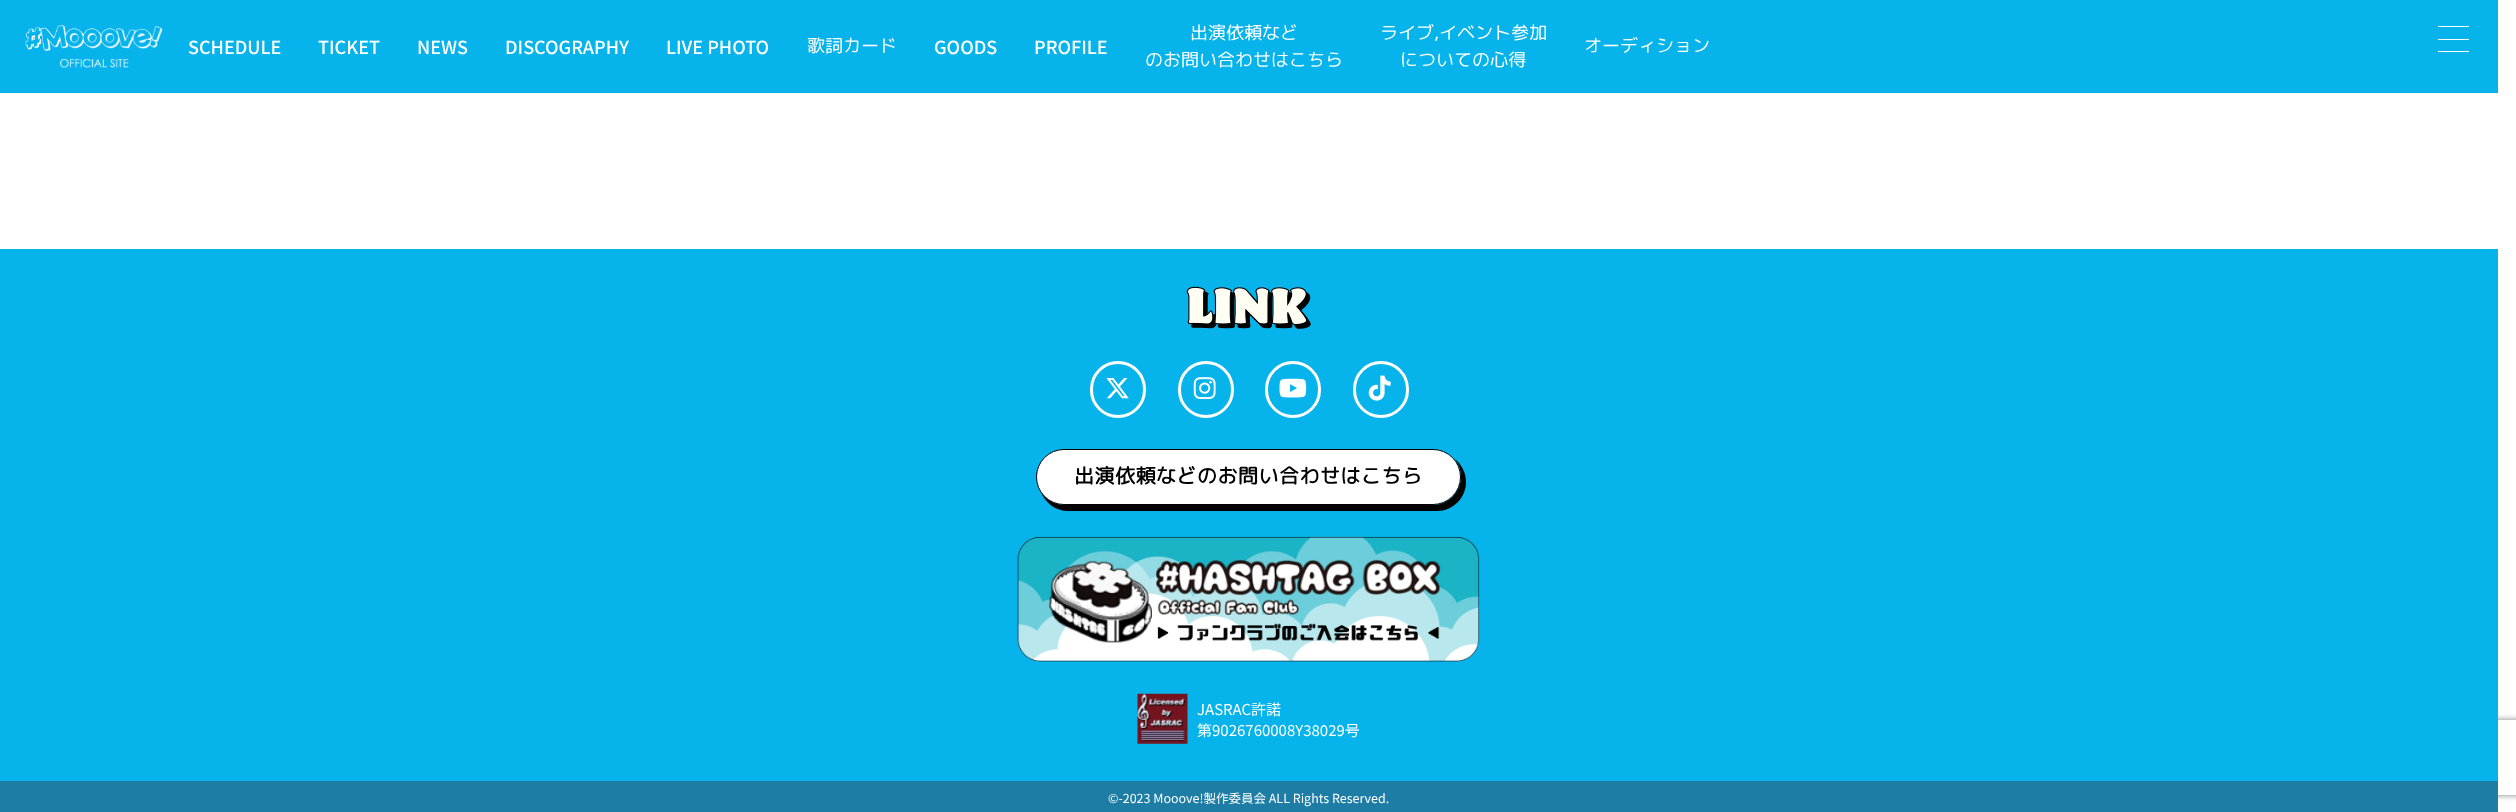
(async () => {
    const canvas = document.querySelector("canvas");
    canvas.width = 2516;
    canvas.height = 812;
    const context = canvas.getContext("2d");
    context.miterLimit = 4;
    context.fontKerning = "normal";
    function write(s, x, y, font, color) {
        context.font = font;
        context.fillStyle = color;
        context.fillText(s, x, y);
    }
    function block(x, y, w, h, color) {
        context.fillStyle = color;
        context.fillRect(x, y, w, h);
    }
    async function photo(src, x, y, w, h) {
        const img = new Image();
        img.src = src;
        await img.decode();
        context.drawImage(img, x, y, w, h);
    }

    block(0, 0, 2516, 812, "rgb(255, 255, 255)");
    block(0, 0, 2498, 93, "rgb(6, 180, 235)");
    await photo("media/1.png", 25, 25, 138, 43);
    write("SCHEDULE", 188, 54, "500 18px Noto Sans JP", "rgb(255, 255, 255)");
    write("TICKET", 318, 54, "500 18px Noto Sans JP", "rgb(255, 255, 255)");
    write("NEWS", 417, 54, "500 18px Noto Sans JP", "rgb(255, 255, 255)");
    write("DISCOGRAPHY", 505, 54, "500 18px Noto Sans JP", "rgb(255, 255, 255)");
    write("LIVE PHOTO", 666, 54, "500 18px Noto Sans JP", "rgb(255, 255, 255)");
    write("歌詞カード", 807, 52, "18px 'Rounded Mplus 1c'", "rgb(255, 255, 255)");
    write("GOODS", 934, 54, "500 18px Noto Sans JP", "rgb(255, 255, 255)");
    write("PROFILE", 1034, 54, "500 18px Noto Sans JP", "rgb(255, 255, 255)");
    write("出演依頼など", 1190, 39, "18px 'Rounded Mplus 1c'", "rgb(255, 255, 255)");
    write("のお問い合わせはこちら", 1145, 66, "18px 'Rounded Mplus 1c'", "rgb(255, 255, 255)");
    write("ライブ,イベント参加", 1380, 39, "18px 'Rounded Mplus 1c'", "rgb(255, 255, 255)");
    write("についての心得", 1400, 66, "18px 'Rounded Mplus 1c'", "rgb(255, 255, 255)");
    write("オーディション", 1584, 52, "18px 'Rounded Mplus 1c'", "rgb(255, 255, 255)");
    block(2438, 26, 31, 1, "rgb(255, 255, 255)");
    block(2438, 39, 31, 1, "rgb(255, 255, 255)");
    block(2438, 51, 31, 1, "rgb(255, 255, 255)");
    context.save();
    context.beginPath();
    context.moveTo(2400, 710);
    context.lineTo(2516, 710);
    context.lineTo(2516, 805);
    context.lineTo(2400, 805);
    context.closePath();
    context.moveTo(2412.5, 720);
    context.lineTo(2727.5, 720);
    context.bezierCurveTo(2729, 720, 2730, 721, 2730, 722.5);
    context.lineTo(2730, 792.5);
    context.bezierCurveTo(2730, 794, 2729, 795, 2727.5, 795);
    context.lineTo(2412.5, 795);
    context.bezierCurveTo(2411, 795, 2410, 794, 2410, 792.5);
    context.lineTo(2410, 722.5);
    context.bezierCurveTo(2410, 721, 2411, 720, 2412.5, 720);
    context.closePath();
    context.clip("evenodd");
    context.fillStyle = "rgb(128, 128, 128)";
    context.filter = "blur(3px)";
    context.beginPath();
    context.roundRect(2410, 720, 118, 75, 2.5);
    context.fill();
    context.filter = "none";
    context.restore();
    block(0, 249, 2498, 532, "rgb(6, 180, 235)");
    await photo("media/2.png", 1186, 286, 125, 43);
    context.beginPath();
    context.roundRect(1091.5, 362.5, 53, 54, 26.5);
    context.strokeStyle = "rgb(255, 255, 255)";
    context.lineWidth = 3;
    context.stroke();
    await photo("media/3.png", 1106, 378, 23, 21);
    context.beginPath();
    context.roundRect(1179.5, 362.5, 53, 54, 26.5);
    context.stroke();
    await photo("media/4.png", 1193, 377, 23, 23);
    context.beginPath();
    context.roundRect(1266.5, 362.5, 53, 54, 26.5);
    context.stroke();
    await photo("media/5.png", 1279, 378, 28, 20);
    context.beginPath();
    context.roundRect(1354.5, 362.5, 53, 54, 26.5);
    context.stroke();
    await photo("media/6.png", 1368, 375, 23, 26);
    context.fillStyle = "rgb(0, 0, 0)";
    context.beginPath();
    context.moveTo(1041, 492);
    context.bezierCurveTo(1045, 503, 1056, 511, 1068, 511);
    context.lineTo(1437, 511);
    context.bezierCurveTo(1453, 511, 1466, 498, 1466, 482);
    context.bezierCurveTo(1466, 473, 1462, 465, 1455, 459);
    context.bezierCurveTo(1459, 464, 1461, 470, 1461, 477);
    context.bezierCurveTo(1461, 492, 1449, 505, 1433, 505);
    context.lineTo(1064, 505);
    context.bezierCurveTo(1055, 505, 1046, 500, 1041, 492);
    context.closePath();
    context.fill();
    context.fillStyle = "rgb(255, 255, 255)";
    context.beginPath();
    context.roundRect(1036.5, 449.5, 424, 55, 27.5);
    context.fill();
    context.strokeStyle = "rgb(0, 0, 0)";
    context.lineWidth = 1;
    context.stroke();
    context.letterSpacing = "0.5px";
    write("出演依頼などのお問い合わせはこちら", 1074, 483, "bold 20px 'Rounded Mplus 1c'", "rgb(0, 0, 0)");
    await photo("media/7.png", 1017, 536, 463, 126);
    await photo("media/8.png", 1137, 693, 51, 51);
    context.letterSpacing = "0px";
    write("JASRAC許諾", 1197, 715, "15px Noto Sans JP", "rgb(255, 255, 255)");
    write("第9026760008Y38029号", 1197, 736, "15px Noto Sans JP", "rgb(255, 255, 255)");
    block(0, 781, 2498, 31, "rgb(29, 125, 164)");
    write("©︎-2023 Mooove!製作委員会 ALL Rights Reserved.", 1108, 803, "12.5px Noto Sans JP", "rgb(255, 255, 255)");
})();
